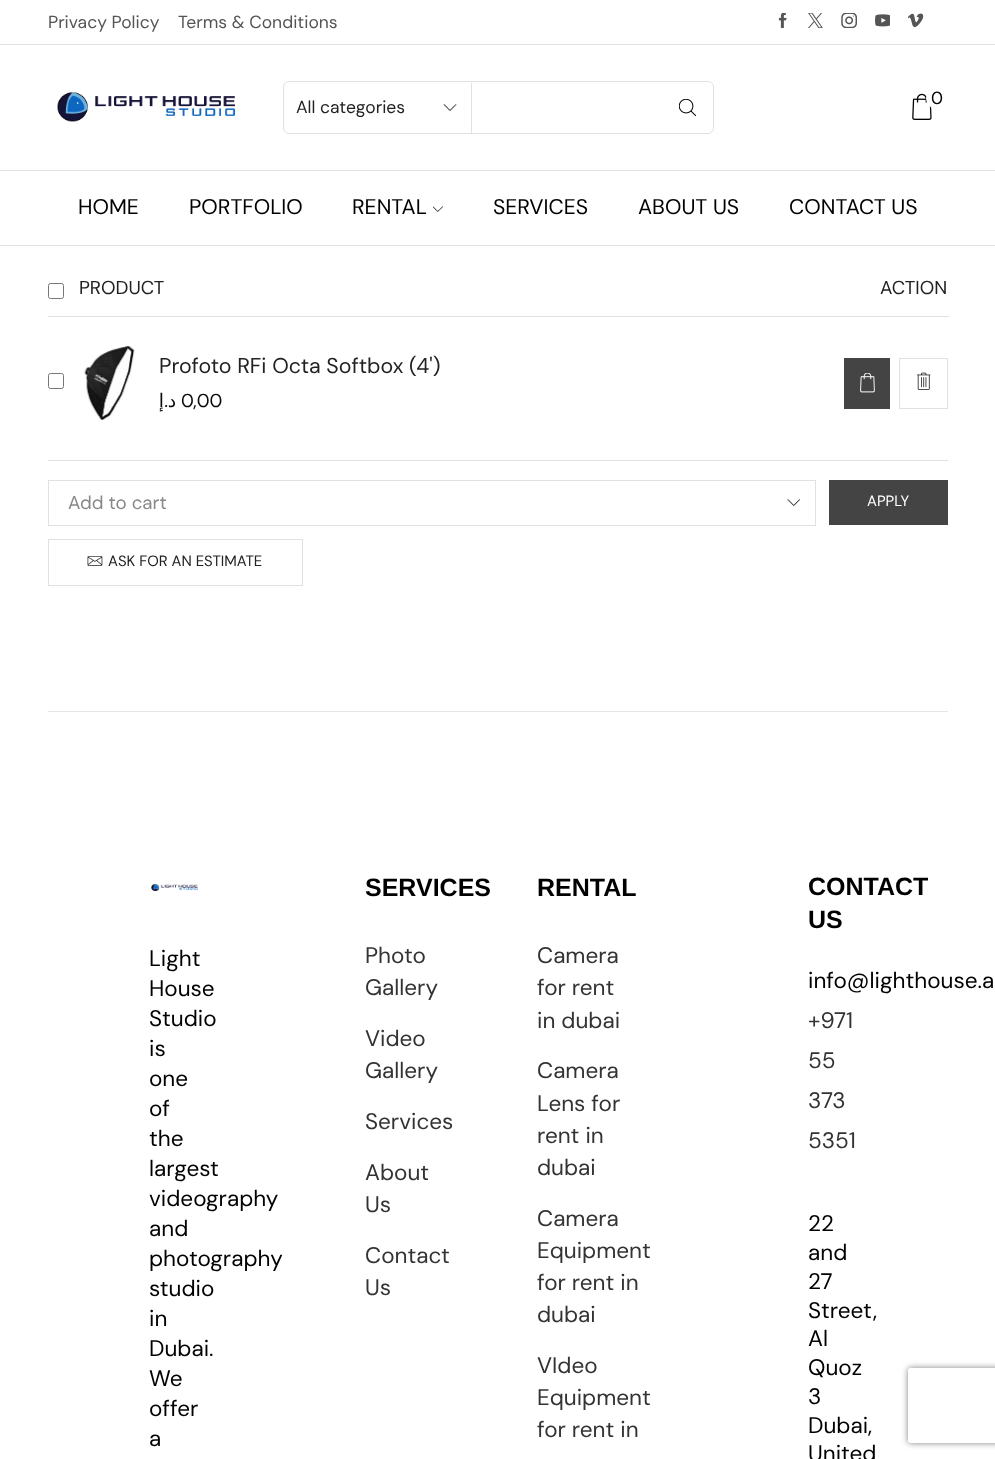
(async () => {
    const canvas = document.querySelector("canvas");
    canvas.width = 995;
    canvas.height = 1459;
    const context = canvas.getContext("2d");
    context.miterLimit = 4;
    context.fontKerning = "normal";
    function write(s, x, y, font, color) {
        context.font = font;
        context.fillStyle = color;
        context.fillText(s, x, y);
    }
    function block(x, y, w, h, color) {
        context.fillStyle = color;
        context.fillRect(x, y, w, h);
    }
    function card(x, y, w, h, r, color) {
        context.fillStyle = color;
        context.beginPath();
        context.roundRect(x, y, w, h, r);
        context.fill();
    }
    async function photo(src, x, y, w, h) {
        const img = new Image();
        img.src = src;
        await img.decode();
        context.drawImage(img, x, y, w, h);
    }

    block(0, 0, 995, 1459, "rgb(255, 255, 255)");
    block(0, 44, 995, 1, "rgb(225, 225, 225)");
    write("Privacy Policy", 48, 28, "17.5px DM Sans", "rgb(85, 85, 85)");
    write("Terms & Conditions", 178, 28, "17.5px DM Sans", "rgb(85, 85, 85)");
    await photo("media/1.png", 778, 13, 9, 15);
    await photo("media/2.png", 808, 13, 15, 15);
    await photo("media/3.png", 841, 13, 16, 15);
    await photo("media/4.png", 875, 14, 15, 13);
    await photo("media/5.png", 908, 13, 16, 15);
    block(0, 170, 995, 1, "rgb(225, 225, 225)");
    await photo("media/6.png", 57, 92, 178, 30);
    context.beginPath();
    context.roundRect(283.5, 81.5, 430, 52, 5.5);
    context.strokeStyle = "rgb(225, 225, 225)";
    context.stroke();
    await photo("media/7.png", 443, 104, 14, 7);
    block(471, 83, 1, 50, "rgb(225, 225, 225)");
    write("All categories", 296, 113, "17.5px DM Sans", "rgb(34, 34, 34)");
    card(663, 83, 50, 50, 6, "rgb(255, 255, 255)");
    await photo("media/8.png", 679, 99, 17, 17);
    await photo("media/9.png", 912, 93, 20, 27);
    card(926, 88, 22, 21, 10.5, "rgb(255, 255, 255)");
    write("0", 931, 104, "17.5px DM Sans", "rgb(0, 0, 0)");
    block(0, 245, 995, 1, "rgb(225, 225, 225)");
    write("HOME", 78, 214, "21.25px DM Sans", "rgb(0, 0, 0)");
    write("PORTFOLIO", 189, 214, "21.25px DM Sans", "rgb(0, 0, 0)");
    write("RENTAL", 352, 214, "21.25px DM Sans", "rgb(0, 0, 0)");
    await photo("media/10.png", 433, 206, 10, 6);
    write("SERVICES", 493, 214, "21.25px DM Sans", "rgb(0, 0, 0)");
    write("ABOUT US", 638, 214, "21.25px DM Sans", "rgb(0, 0, 0)");
    write("CONTACT US", 789, 214, "21.25px DM Sans", "rgb(0, 0, 0)");
    block(48, 316, 901, 1, "rgb(225, 225, 225)");
    context.beginPath();
    context.roundRect(48.5, 283.5, 15, 15, 2);
    context.strokeStyle = "rgb(118, 118, 118)";
    context.stroke();
    write("PRODUCT", 79, 294, "18.75px DM Sans", "rgb(34, 34, 34)");
    write("ACTION", 880, 294, "18.75px DM Sans", "rgb(34, 34, 34)");
    context.beginPath();
    context.roundRect(48.5, 373.5, 15, 15, 2);
    context.stroke();
    await photo("media/11.png", 84, 346, 51, 74);
    write("Profoto RFi Octa Softbox (4')", 159, 373, "21.4px DM Sans", "rgb(34, 34, 34)");
    context.direction = "rtl";
    write("إ", 164, 407, "18.75px DejaVu Sans", "rgb(10, 10, 10)");
    write(".", 168, 407, "18.75px DM Sans", "rgb(10, 10, 10)");
    write("د", 176, 407, "18.75px DejaVu Sans", "rgb(10, 10, 10)");
    context.direction = "ltr";
    write("0,00", 181, 407, "18.75px DM Sans", "rgb(10, 10, 10)");
    block(844, 358, 46, 51, "rgb(68, 68, 68)");
    await photo("media/12.png", 860, 373, 15, 20);
    context.strokeStyle = "rgb(225, 225, 225)";
    context.strokeRect(899.5, 358.5, 48, 50);
    await photo("media/13.png", 917, 372, 14, 18);
    block(48, 460, 900, 1, "rgb(225, 225, 225)");
    await photo("media/14.png", 787, 499, 13, 7);
    context.strokeRect(48.5, 480.5, 767, 45);
    write("Add to cart", 68, 509, "18.75px DM Sans", "rgb(136, 136, 136)");
    block(829, 480, 119, 45, "rgb(68, 68, 68)");
    write("APPLY", 867, 506, "14.9px DM Sans", "rgb(255, 255, 255)");
    context.strokeRect(48.5, 539.5, 254, 46);
    await photo("media/15.png", 87, 556, 16, 10);
    write("ASK FOR AN ESTIMATE", 108, 566, "14.9px DM Sans", "rgb(34, 34, 34)");
    block(48, 711, 900, 1, "rgb(230, 230, 230)");
    await photo("media/16.png", 151, 884, 47, 7);
    write("Light", 149, 966, "22.5px DM Sans", "rgb(0, 0, 0)");
    write("House", 149, 996, "22.5px DM Sans", "rgb(0, 0, 0)");
    write("Studio", 149, 1026, "22.5px DM Sans", "rgb(0, 0, 0)");
    write("is", 149, 1056, "22.5px DM Sans", "rgb(0, 0, 0)");
    write("one", 149, 1086, "22.5px DM Sans", "rgb(0, 0, 0)");
    write("of", 149, 1116, "22.5px DM Sans", "rgb(0, 0, 0)");
    write("the", 149, 1146, "22.5px DM Sans", "rgb(0, 0, 0)");
    write("largest", 149, 1176, "22.5px DM Sans", "rgb(0, 0, 0)");
    write("videography", 149, 1206, "22.5px DM Sans", "rgb(0, 0, 0)");
    write("and", 149, 1236, "22.5px DM Sans", "rgb(0, 0, 0)");
    write("photography", 149, 1266, "22.5px DM Sans", "rgb(0, 0, 0)");
    write("studio", 149, 1296, "22.5px DM Sans", "rgb(0, 0, 0)");
    write("in", 149, 1326, "22.5px DM Sans", "rgb(0, 0, 0)");
    write("Dubai.", 149, 1356, "22.5px DM Sans", "rgb(0, 0, 0)");
    write("We", 149, 1386, "22.5px DM Sans", "rgb(0, 0, 0)");
    write("offer", 149, 1416, "22.5px DM Sans", "rgb(0, 0, 0)");
    write("a", 149, 1446, "22.5px DM Sans", "rgb(0, 0, 0)");
    write("SERVICES", 365, 896, "bold 25px Liberation Sans", "rgb(0, 0, 0)");
    write("Photo", 365, 963, "22.5px DM Sans", "rgb(51, 51, 51)");
    write("Gallery", 365, 995, "22.5px DM Sans", "rgb(51, 51, 51)");
    write("Video", 365, 1046, "22.5px DM Sans", "rgb(51, 51, 51)");
    write("Gallery", 365, 1078, "22.5px DM Sans", "rgb(51, 51, 51)");
    write("Services", 365, 1129, "22.5px DM Sans", "rgb(51, 51, 51)");
    write("About", 365, 1180, "22.5px DM Sans", "rgb(51, 51, 51)");
    write("Us", 365, 1212, "22.5px DM Sans", "rgb(51, 51, 51)");
    write("Contact", 365, 1263, "22.5px DM Sans", "rgb(51, 51, 51)");
    write("Us", 365, 1295, "22.5px DM Sans", "rgb(51, 51, 51)");
    write("RENTAL", 537, 896, "bold 25px Liberation Sans", "rgb(0, 0, 0)");
    write("Camera", 537, 963, "22.5px DM Sans", "rgb(51, 51, 51)");
    write("for rent", 537, 995, "22.5px DM Sans", "rgb(51, 51, 51)");
    write("in dubai", 537, 1028, "22.5px DM Sans", "rgb(51, 51, 51)");
    write("Camera", 537, 1078, "22.5px DM Sans", "rgb(51, 51, 51)");
    write("Lens for", 537, 1111, "22.5px DM Sans", "rgb(51, 51, 51)");
    write("rent in", 537, 1143, "22.5px DM Sans", "rgb(51, 51, 51)");
    write("dubai", 537, 1175, "22.5px DM Sans", "rgb(51, 51, 51)");
    write("Camera", 537, 1226, "22.5px DM Sans", "rgb(51, 51, 51)");
    write("Equipment", 537, 1258, "22.5px DM Sans", "rgb(51, 51, 51)");
    write("for rent in", 537, 1290, "22.5px DM Sans", "rgb(51, 51, 51)");
    write("dubai", 537, 1322, "22.5px DM Sans", "rgb(51, 51, 51)");
    write("VIdeo", 537, 1373, "22.5px DM Sans", "rgb(51, 51, 51)");
    write("Equipment", 537, 1405, "22.5px DM Sans", "rgb(51, 51, 51)");
    write("for rent in", 537, 1437, "22.5px DM Sans", "rgb(51, 51, 51)");
    write("CONTACT", 808, 895, "bold 25px Liberation Sans", "rgb(0, 0, 0)");
    write("US", 808, 928, "bold 25px Liberation Sans", "rgb(0, 0, 0)");
    write("info@lighthouse.a", 808, 988, "22.5px DM Sans", "rgb(0, 0, 0)");
    write("+971", 808, 1028, "22.5px DM Sans", "rgb(51, 51, 51)");
    write("55", 808, 1068, "22.5px DM Sans", "rgb(51, 51, 51)");
    write("373", 808, 1108, "22.5px DM Sans", "rgb(51, 51, 51)");
    write("5351", 808, 1148, "22.5px DM Sans", "rgb(51, 51, 51)");
    write("22", 808, 1231, "22.5px DM Sans", "rgb(0, 0, 0)");
    write("and", 808, 1260, "22.5px DM Sans", "rgb(0, 0, 0)");
    write("27", 808, 1289, "22.5px DM Sans", "rgb(0, 0, 0)");
    write("Street,", 808, 1318, "22.5px DM Sans", "rgb(0, 0, 0)");
    write("Al", 808, 1346, "22.5px DM Sans", "rgb(0, 0, 0)");
    write("Quoz", 808, 1375, "22.5px DM Sans", "rgb(0, 0, 0)");
    write("3", 808, 1404, "22.5px DM Sans", "rgb(0, 0, 0)");
    write("Dubai,", 808, 1433, "22.5px DM Sans", "rgb(0, 0, 0)");
    write("United", 808, 1461, "22.5px DM Sans", "rgb(0, 0, 0)");
    context.save();
    context.beginPath();
    context.moveTo(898, 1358);
    context.lineTo(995, 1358);
    context.lineTo(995, 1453);
    context.lineTo(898, 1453);
    context.closePath();
    context.moveTo(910.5, 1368);
    context.lineTo(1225.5, 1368);
    context.bezierCurveTo(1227, 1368, 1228, 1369, 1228, 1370.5);
    context.lineTo(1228, 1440.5);
    context.bezierCurveTo(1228, 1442, 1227, 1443, 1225.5, 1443);
    context.lineTo(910.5, 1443);
    context.bezierCurveTo(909, 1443, 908, 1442, 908, 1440.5);
    context.lineTo(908, 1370.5);
    context.bezierCurveTo(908, 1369, 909, 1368, 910.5, 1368);
    context.closePath();
    context.clip("evenodd");
    context.fillStyle = "rgb(128, 128, 128)";
    context.filter = "blur(3px)";
    context.beginPath();
    context.roundRect(908, 1368, 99, 75, 2.5);
    context.fill();
    context.filter = "none";
    context.restore();
})();
